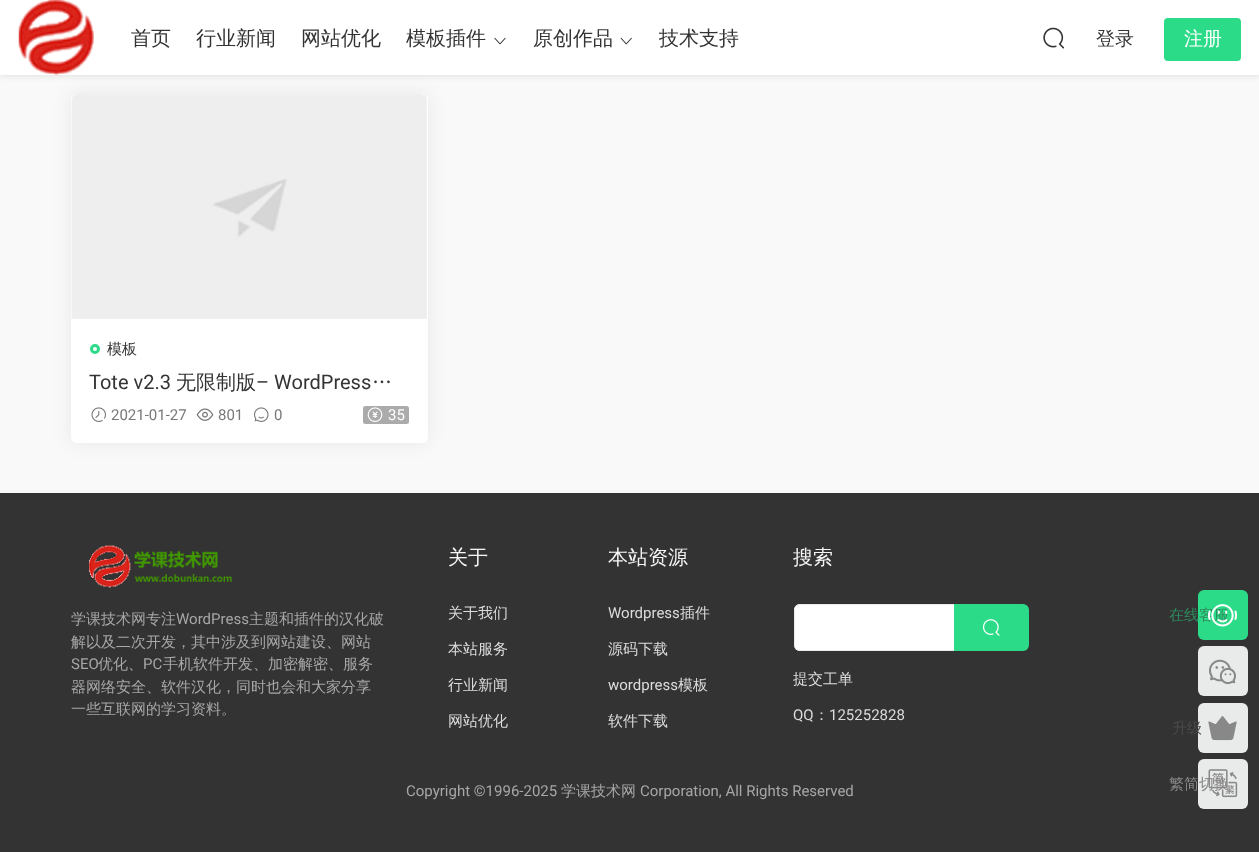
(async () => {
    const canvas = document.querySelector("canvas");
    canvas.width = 1259;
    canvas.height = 852;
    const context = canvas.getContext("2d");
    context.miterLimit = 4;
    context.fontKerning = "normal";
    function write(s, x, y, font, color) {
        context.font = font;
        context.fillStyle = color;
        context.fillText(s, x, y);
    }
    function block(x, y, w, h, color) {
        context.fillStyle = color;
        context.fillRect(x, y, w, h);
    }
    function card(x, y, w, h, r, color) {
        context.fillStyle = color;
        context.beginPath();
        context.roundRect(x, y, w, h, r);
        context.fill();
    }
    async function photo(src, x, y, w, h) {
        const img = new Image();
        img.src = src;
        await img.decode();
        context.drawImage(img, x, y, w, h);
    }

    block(0, 0, 1259, 852, "rgb(249, 249, 249)");
    context.fillStyle = "rgba(0, 0, 0, 0.1)";
    context.filter = "blur(3px)";
    context.beginPath();
    context.rect(0, 1, 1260, 75);
    context.fill();
    context.filter = "none";
    context.fillStyle = "rgba(0, 0, 0, 0.07)";
    context.filter = "blur(9.5px)";
    context.beginPath();
    context.roundRect(71, 94, 357, 349, 6);
    context.fill();
    context.filter = "none";
    block(0, 0, 1259, 75, "rgb(255, 255, 255)");
    await photo("media/1.png", 18, 0, 76, 75);
    write("首页", 131, 45, "500 20px WenQuanYi Zen Hei", "rgb(51, 51, 51)");
    write("行业新闻", 196, 45, "500 20px WenQuanYi Zen Hei", "rgb(51, 51, 51)");
    write("网站优化", 301, 45, "500 20px WenQuanYi Zen Hei", "rgb(51, 51, 51)");
    write("模板插件", 406, 45, "500 20px WenQuanYi Zen Hei", "rgb(51, 51, 51)");
    await photo("media/2.png", 494, 37, 12, 8);
    write("原创作品", 533, 45, "500 20px WenQuanYi Zen Hei", "rgb(51, 51, 51)");
    await photo("media/3.png", 620, 37, 12, 8);
    write("技术支持", 659, 45, "500 20px WenQuanYi Zen Hei", "rgb(51, 51, 51)");
    await photo("media/4.png", 1043, 27, 22, 22);
    write("登录", 1096, 45, "500 19px WenQuanYi Zen Hei", "rgb(51, 51, 51)");
    card(1164, 18, 77, 43, 4, "rgb(44, 219, 135)");
    write("注册", 1184, 45, "500 19px WenQuanYi Zen Hei", "rgb(255, 255, 255)");
    card(71, 94, 357, 349, 6, "rgb(255, 255, 255)");
    context.beginPath();
    context.roundRect(71, 94, 357, 225, [6, 6, 0, 0]);
    context.fill();
    await photo("media/5.png", 71, 94, 356, 225);
    context.beginPath();
    context.arc(95, 349, 3.5, 0, Math.PI * 2);
    context.strokeStyle = "rgb(44, 219, 135)";
    context.lineWidth = 3;
    context.stroke();
    write("模板", 107, 354, "500 15px WenQuanYi Zen Hei", "rgb(51, 51, 51)");
    write("Tote v2.3", 89, 389, "20px Roboto", "rgb(51, 51, 51)");
    write("无限制版", 176, 389, "500 20px WenQuanYi Zen Hei", "rgb(51, 51, 51)");
    write("– WordPress", 256, 389, "20px Roboto", "rgb(51, 51, 51)");
    write("…", 372, 389, "500 20px WenQuanYi Zen Hei", "rgb(51, 51, 51)");
    await photo("media/6.png", 91, 407, 15, 15);
    write("2021-01-27", 111, 420, "15px Roboto", "rgb(119, 119, 119)");
    await photo("media/7.png", 196, 408, 18, 13);
    write("801", 218, 420, "15px Roboto", "rgb(119, 119, 119)");
    await photo("media/8.png", 254, 407, 15, 15);
    write("0", 274, 420, "15px Roboto", "rgb(119, 119, 119)");
    context.fillStyle = "rgb(171, 171, 171)";
    context.beginPath();
    context.roundRect(363, 406, 21, 18, [2.5, 0, 0, 2.5]);
    context.fill();
    await photo("media/9.png", 367, 407, 16, 15);
    context.beginPath();
    context.roundRect(384, 406, 25, 18, [0, 2.5, 2.5, 0]);
    context.fill();
    write("35", 388, 420, "15px Roboto", "rgb(255, 255, 255)");
    block(0, 493, 1259, 359, "rgb(51, 51, 51)");
    await photo("media/10.png", 89, 545, 143, 43);
    write("学课技术网专注", 71, 624, "500 15px WenQuanYi Zen Hei", "rgb(167, 167, 167)");
    write("WordPress", 176, 624, "15px Roboto", "rgb(167, 167, 167)");
    write("主题和插件的汉化破", 249, 624, "500 15px WenQuanYi Zen Hei", "rgb(167, 167, 167)");
    write("解以及二次开发，其中涉及到网站建设、网站", 71, 647, "500 15px WenQuanYi Zen Hei", "rgb(167, 167, 167)");
    write("SEO", 71, 669, "15px Roboto", "rgb(167, 167, 167)");
    write("优化、", 98, 669, "500 15px WenQuanYi Zen Hei", "rgb(167, 167, 167)");
    write("PC", 143, 669, "15px Roboto", "rgb(167, 167, 167)");
    write("手机软件开发、加密解密、服务", 163, 669, "500 15px WenQuanYi Zen Hei", "rgb(167, 167, 167)");
    write("器网络安全、软件汉化，同时也会和大家分享", 71, 692, "500 15px WenQuanYi Zen Hei", "rgb(167, 167, 167)");
    write("一些互联网的学习资料。", 71, 714, "500 15px WenQuanYi Zen Hei", "rgb(167, 167, 167)");
    write("关于", 448, 564, "500 20px WenQuanYi Zen Hei", "rgb(245, 245, 245)");
    write("关于我们", 448, 618, "500 15px WenQuanYi Zen Hei", "rgb(220, 220, 220)");
    write("本站服务", 448, 654, "500 15px WenQuanYi Zen Hei", "rgb(220, 220, 220)");
    write("行业新闻", 448, 690, "500 15px WenQuanYi Zen Hei", "rgb(220, 220, 220)");
    write("网站优化", 448, 726, "500 15px WenQuanYi Zen Hei", "rgb(220, 220, 220)");
    write("本站资源", 608, 564, "500 20px WenQuanYi Zen Hei", "rgb(245, 245, 245)");
    write("Wordpress", 608, 618, "15px Roboto", "rgb(220, 220, 220)");
    write("插件", 680, 618, "500 15px WenQuanYi Zen Hei", "rgb(220, 220, 220)");
    write("源码下载", 608, 654, "500 15px WenQuanYi Zen Hei", "rgb(220, 220, 220)");
    write("wordpress", 608, 690, "15px Roboto", "rgb(220, 220, 220)");
    write("模板", 678, 690, "500 15px WenQuanYi Zen Hei", "rgb(220, 220, 220)");
    write("软件下载", 608, 726, "500 15px WenQuanYi Zen Hei", "rgb(220, 220, 220)");
    write("搜索", 793, 564, "500 20px WenQuanYi Zen Hei", "rgb(245, 245, 245)");
    context.fillStyle = "rgb(255, 255, 255)";
    context.beginPath();
    context.roundRect(794, 604, 160, 47, [6, 0, 0, 6]);
    context.fill();
    context.fillStyle = "rgb(234, 234, 234)";
    context.beginPath();
    context.moveTo(800, 604);
    context.lineTo(954, 604);
    context.lineTo(954, 651);
    context.lineTo(800, 651);
    context.bezierCurveTo(797, 651, 794, 648, 794, 645);
    context.lineTo(794, 610);
    context.bezierCurveTo(794, 607, 797, 604, 800, 604);
    context.closePath();
    context.moveTo(800, 605);
    context.lineTo(954, 605);
    context.lineTo(954, 650);
    context.lineTo(800, 650);
    context.bezierCurveTo(797, 650, 795, 648, 795, 645);
    context.lineTo(795, 610);
    context.bezierCurveTo(795, 607, 797, 605, 800, 605);
    context.closePath();
    context.fill("evenodd");
    context.fillStyle = "rgb(44, 219, 135)";
    context.beginPath();
    context.roundRect(954, 604, 75, 47, [0, 6, 6, 0]);
    context.fill();
    await photo("media/11.png", 982, 619, 18, 17);
    write("提交工单", 793, 684, "500 15px WenQuanYi Zen Hei", "rgb(220, 220, 220)");
    write("QQ", 793, 720, "15px Roboto", "rgb(220, 220, 220)");
    write("：", 814, 720, "500 15px WenQuanYi Zen Hei", "rgb(220, 220, 220)");
    write("125252828", 829, 720, "15px Roboto", "rgb(220, 220, 220)");
    write("Copyright ©1996-2025", 406, 796, "15px Roboto", "rgb(167, 167, 167)");
    write("学课技术网", 561, 796, "500 15px WenQuanYi Zen Hei", "rgb(167, 167, 167)");
    write("Corporation, All Rights Reserved", 640, 796, "15px Roboto", "rgb(167, 167, 167)");
    card(1198, 590, 50, 50, 6, "rgb(44, 219, 135)");
    write("在线客服", 1169, 620, "500 15px WenQuanYi Zen Hei", "rgb(47, 139, 95)");
    await photo("media/12.png", 1207, 604, 31, 23);
    card(1198, 646, 50, 50, 6, "rgb(233, 234, 234)");
    await photo("media/13.png", 1209, 659, 27, 26);
    card(1198, 703, 50, 50, 6, "rgb(233, 234, 234)");
    write("升级", 1172, 733, "500 15px WenQuanYi Zen Hei", "rgb(74, 74, 74)");
    await photo("media/14.png", 1208, 716, 29, 25);
    card(1198, 759, 50, 50, 6, "rgb(233, 234, 234)");
    write("繁简切换", 1169, 789, "500 15px WenQuanYi Zen Hei", "rgb(137, 137, 137)");
    await photo("media/15.png", 1208, 769, 30, 29);
})();
